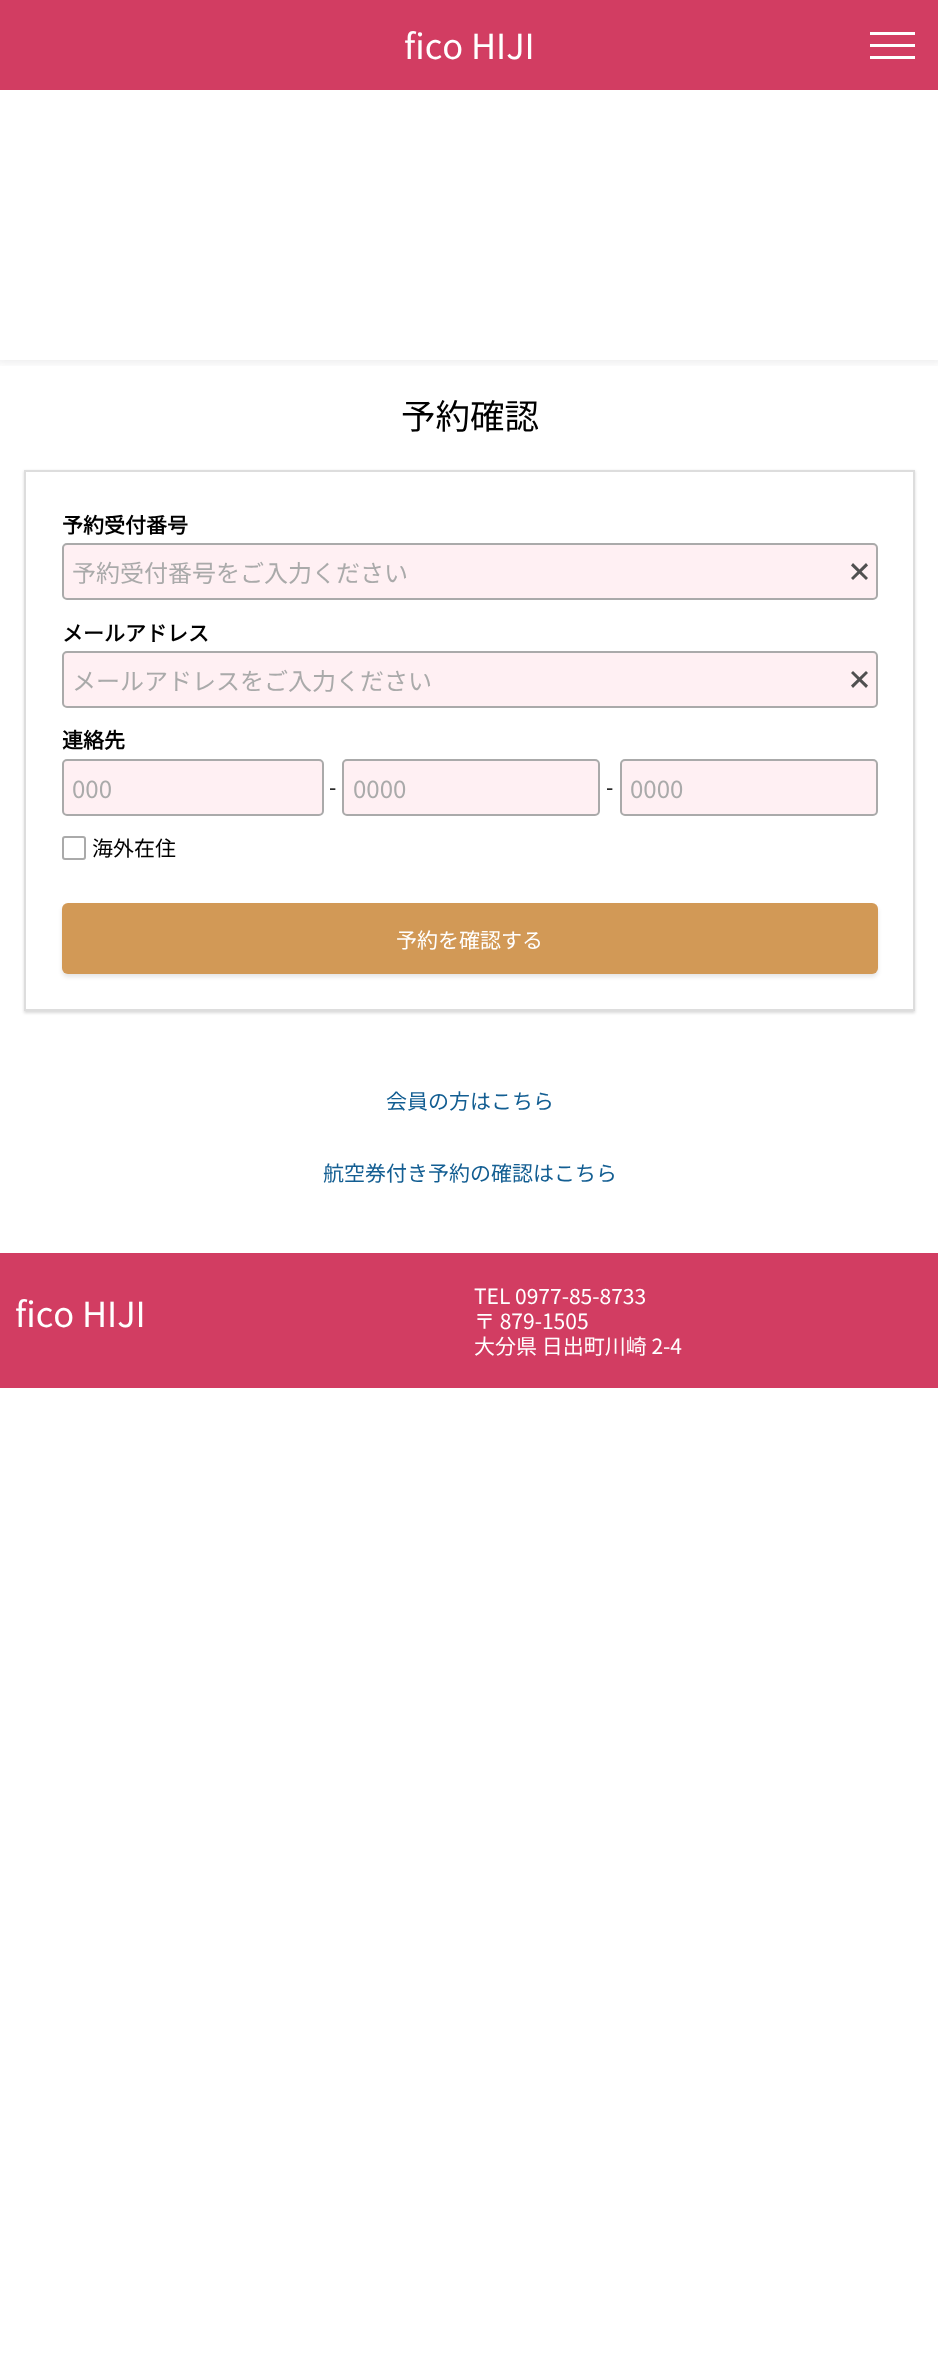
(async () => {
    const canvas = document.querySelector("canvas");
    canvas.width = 938;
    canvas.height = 2359;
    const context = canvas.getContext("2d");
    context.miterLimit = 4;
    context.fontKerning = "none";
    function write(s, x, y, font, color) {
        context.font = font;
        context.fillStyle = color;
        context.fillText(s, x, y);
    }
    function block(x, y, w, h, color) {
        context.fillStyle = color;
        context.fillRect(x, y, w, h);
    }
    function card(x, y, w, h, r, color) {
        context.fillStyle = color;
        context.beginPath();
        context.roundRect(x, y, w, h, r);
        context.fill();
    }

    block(0, 0, 938, 2359, "rgb(255, 255, 255)");
    context.save();
    context.beginPath();
    context.rect(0, 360, 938, 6);
    context.clip();
    context.fillStyle = "rgba(80, 80, 90, 0.1)";
    context.filter = "blur(4px)";
    context.beginPath();
    context.rect(-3, -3, 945, 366);
    context.fill();
    context.filter = "none";
    context.restore();
    block(0, 0, 938, 90, "rgb(210, 61, 98)");
    write("fico HIJI", 404, 59, "100 34.5px Noto Sans JP", "rgb(255, 255, 255)");
    block(870, 44, 45, 3, "rgb(255, 255, 255)");
    block(870, 32, 45, 3, "rgb(255, 255, 255)");
    block(870, 56, 45, 3, "rgb(255, 255, 255)");
    write("予約確認", 401, 429, "100 34.5px Noto Sans JP", "rgb(0, 0, 0)");
    context.save();
    context.beginPath();
    context.moveTo(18, 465);
    context.lineTo(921, 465);
    context.lineTo(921, 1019);
    context.lineTo(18, 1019);
    context.closePath();
    context.moveTo(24, 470);
    context.lineTo(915, 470);
    context.lineTo(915, 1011);
    context.lineTo(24, 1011);
    context.closePath();
    context.clip("evenodd");
    context.fillStyle = "rgba(0, 0, 0, 0.15)";
    context.filter = "blur(1.5px)";
    context.beginPath();
    context.rect(24, 471, 891, 542);
    context.fill();
    context.filter = "none";
    context.restore();
    context.strokeStyle = "rgb(221, 221, 221)";
    context.lineWidth = 2;
    context.strokeRect(25, 471, 889, 539);
    write("予約受付番号", 62, 533, "bold 21px Noto Sans JP", "rgb(0, 0, 0)");
    context.fillStyle = "rgb(255, 240, 243)";
    context.beginPath();
    context.roundRect(63, 544, 814, 55, 4);
    context.fill();
    context.strokeStyle = "rgb(170, 170, 170)";
    context.stroke();
    write("予約受付番号をご入力ください", 72, 582, "100 24px Noto Sans JP", "rgb(170, 170, 170)");
    context.fillStyle = "rgb(80, 80, 80)";
    context.beginPath();
    context.moveTo(853, 563);
    context.lineTo(868, 578);
    context.lineTo(866, 580);
    context.lineTo(851, 565.5);
    context.closePath();
    context.fill();
    context.beginPath();
    context.moveTo(851, 578);
    context.lineTo(866, 563);
    context.lineTo(868, 565.5);
    context.lineTo(853, 580);
    context.closePath();
    context.fill();
    write("メールアドレス", 62, 641, "bold 21px Noto Sans JP", "rgb(0, 0, 0)");
    context.fillStyle = "rgb(255, 240, 243)";
    context.beginPath();
    context.roundRect(63, 652, 814, 55, 4);
    context.fill();
    context.stroke();
    write("メールアドレスをご入力ください", 72, 690, "100 24px Noto Sans JP", "rgb(170, 170, 170)");
    context.fillStyle = "rgb(80, 80, 80)";
    context.beginPath();
    context.moveTo(853, 671);
    context.lineTo(868, 685.5);
    context.lineTo(866, 688);
    context.lineTo(851, 673);
    context.closePath();
    context.fill();
    context.beginPath();
    context.moveTo(851, 685.5);
    context.lineTo(866, 671);
    context.lineTo(868, 673);
    context.lineTo(853, 688);
    context.closePath();
    context.fill();
    write("連絡先", 62, 748, "bold 21px Noto Sans JP", "rgb(0, 0, 0)");
    context.fillStyle = "rgb(255, 240, 243)";
    context.beginPath();
    context.roundRect(63, 760, 260, 55, 4);
    context.fill();
    context.stroke();
    write("000", 72, 798, "100 24px Noto Sans JP", "rgb(170, 170, 170)");
    write("-", 329, 795, "100 21px Noto Sans JP", "rgb(0, 0, 0)");
    context.fillStyle = "rgb(255, 240, 243)";
    context.beginPath();
    context.roundRect(343, 760, 256, 55, 4);
    context.fill();
    context.stroke();
    write("0000", 353, 798, "100 24px Noto Sans JP", "rgb(170, 170, 170)");
    write("-", 606, 795, "100 21px Noto Sans JP", "rgb(0, 0, 0)");
    context.fillStyle = "rgb(255, 240, 243)";
    context.beginPath();
    context.roundRect(621, 760, 256, 55, 4);
    context.fill();
    context.stroke();
    write("0000", 630, 798, "100 24px Noto Sans JP", "rgb(170, 170, 170)");
    context.beginPath();
    context.roundRect(63, 837, 22, 22, 2);
    context.stroke();
    write("海外在住", 92, 856, "100 21px Noto Sans JP", "rgb(0, 0, 0)");
    context.fillStyle = "rgba(0, 0, 0, 0.1)";
    context.filter = "blur(2px)";
    context.beginPath();
    context.roundRect(62, 906, 816, 71, 6);
    context.fill();
    context.filter = "none";
    card(62, 903, 816, 71, 6, "rgb(210, 153, 86)");
    write("予約を確認する", 396, 948, "100 21px Noto Sans JP", "rgb(255, 255, 255)");
    write("会員の方はこちら", 386, 1109, "100 21px Noto Sans JP", "rgb(19, 94, 146)");
    write("航空券付き予約の確認はこちら", 323, 1181, "100 21px Noto Sans JP", "rgb(19, 94, 146)");
    block(0, 1253, 938, 135, "rgb(210, 61, 98)");
    write("fico HIJI", 15, 1327, "100 34.5px Noto Sans JP", "rgb(255, 255, 255)");
    write("TEL 0977-85-8733", 474, 1304, "100 21px Noto Sans JP", "rgb(255, 255, 255)");
    write("〒 879-1505", 474, 1329, "100 21px Noto Sans JP", "rgb(255, 255, 255)");
    write("大分県 日出町川崎 2-4", 474, 1354, "100 21px Noto Sans JP", "rgb(255, 255, 255)");
})();
